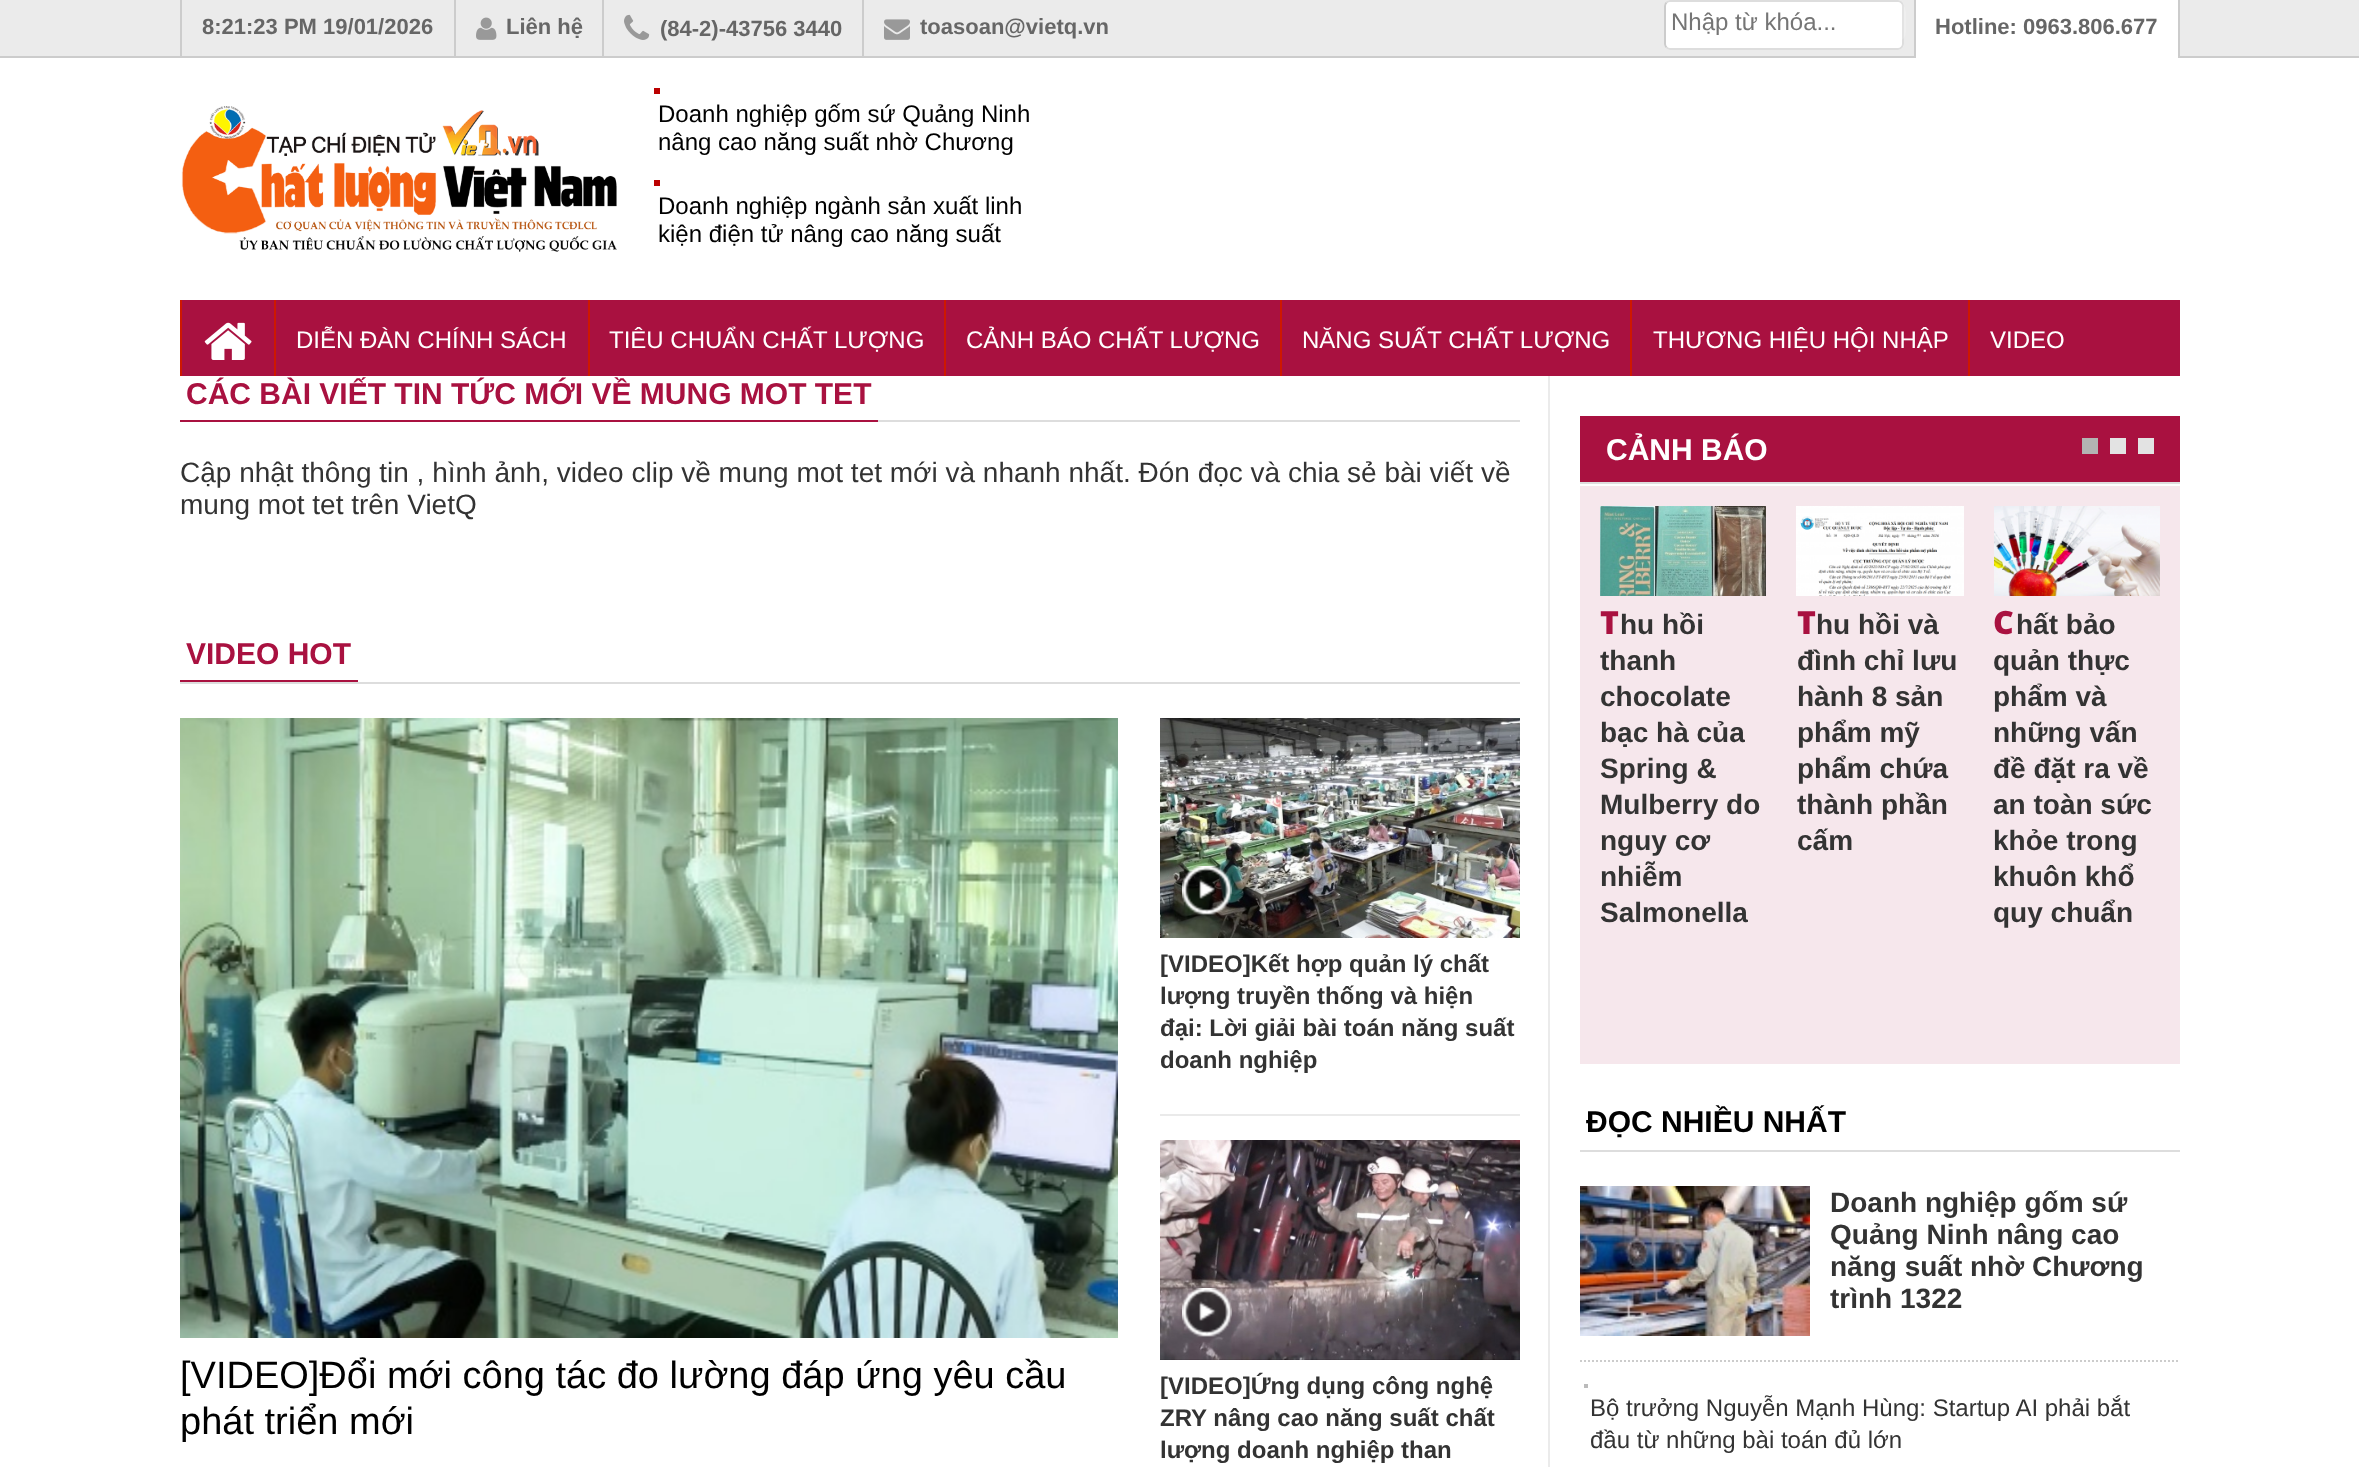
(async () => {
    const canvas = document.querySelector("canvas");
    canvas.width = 2359;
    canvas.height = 1467;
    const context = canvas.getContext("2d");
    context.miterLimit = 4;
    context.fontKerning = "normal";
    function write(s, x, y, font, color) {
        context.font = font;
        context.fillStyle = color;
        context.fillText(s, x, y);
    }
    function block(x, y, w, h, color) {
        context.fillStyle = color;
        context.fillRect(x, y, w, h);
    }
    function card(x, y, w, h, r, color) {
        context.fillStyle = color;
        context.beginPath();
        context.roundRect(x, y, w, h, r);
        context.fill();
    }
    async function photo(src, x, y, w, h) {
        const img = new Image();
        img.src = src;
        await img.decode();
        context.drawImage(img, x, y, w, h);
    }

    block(0, 0, 2359, 1467, "rgb(255, 255, 255)");
    block(0, 0, 2359, 56, "rgb(235, 235, 235)");
    block(0, 56, 2359, 2, "rgb(204, 204, 204)");
    block(180, 0, 2, 56, "rgb(204, 204, 204)");
    write("8:21:23 PM 19/01/2026", 202, 34, "bold 22px Liberation Sans", "rgb(102, 102, 102)");
    block(454, 0, 2, 56, "rgb(204, 204, 204)");
    await photo("media/1.png", 476, 17, 21, 23);
    write("Liên hệ", 506, 34, "bold 22px Liberation Sans", "rgb(102, 102, 102)");
    block(602, 0, 2, 56, "rgb(204, 204, 204)");
    await photo("media/2.png", 624, 14, 26, 26);
    write("(84-2)-43756 3440", 660, 36, "bold 22px Liberation Sans", "rgb(102, 102, 102)");
    block(862, 0, 2, 56, "rgb(204, 204, 204)");
    await photo("media/3.png", 884, 19, 26, 21);
    write("toasoan@vietq.vn", 920, 34, "bold 22px Liberation Sans", "rgb(102, 102, 102)");
    card(1664, 0, 240, 50, 6, "rgb(255, 255, 255)");
    context.beginPath();
    context.moveTo(1666.5, 2.5);
    context.bezierCurveTo(1667.5, 1.5, 1668.5, 1, 1670, 1);
    context.lineTo(1898, 1);
    context.bezierCurveTo(1899.5, 1, 1900.5, 1.5, 1901.5, 2.5);
    context.bezierCurveTo(1902.5, 3.5, 1903, 4.5, 1903, 6);
    context.lineTo(1903, 44);
    context.bezierCurveTo(1903, 45.5, 1902.5, 46.5, 1901.5, 47.5);
    context.bezierCurveTo(1900.5, 48.5, 1899.5, 49, 1898, 49);
    context.lineTo(1670, 49);
    context.bezierCurveTo(1668.5, 49, 1667.5, 48.5, 1666.5, 47.5);
    context.strokeStyle = "rgb(221, 221, 221)";
    context.lineWidth = 2;
    context.stroke();
    context.beginPath();
    context.moveTo(1666.5, 47.5);
    context.bezierCurveTo(1665.5, 46.5, 1665, 45.5, 1665, 44);
    context.lineTo(1665, 6);
    context.bezierCurveTo(1665, 4.5, 1665.5, 3.5, 1666.5, 2.5);
    context.strokeStyle = "rgb(204, 204, 204)";
    context.stroke();
    card(1666, 2, 240, 40, 10, "rgba(255, 255, 255, 0.2)");
    write("Nhập từ khóa...", 1671, 30, "24px Liberation Sans", "rgb(117, 117, 117)");
    block(1916, 0, 262, 58, "rgb(255, 255, 255)");
    block(2178, 0, 2, 58, "rgb(204, 204, 204)");
    block(1914, 0, 2, 58, "rgb(204, 204, 204)");
    write("Hotline: 0963.806.677", 1935, 34, "bold 22px Liberation Sans", "rgb(102, 102, 102)");
    await photo("media/4.png", 181, 106, 436, 146);
    block(654, 88, 6, 6, "rgb(187, 0, 0)");
    write("Doanh nghiệp gốm sứ Quảng Ninh", 658, 122, "24px Liberation Sans", "rgb(0, 0, 0)");
    write("nâng cao năng suất nhờ Chương", 658, 150, "24px Liberation Sans", "rgb(0, 0, 0)");
    block(654, 180, 6, 6, "rgb(187, 0, 0)");
    write("Doanh nghiệp ngành sản xuất linh", 658, 214, "24px Liberation Sans", "rgb(0, 0, 0)");
    write("kiện điện tử nâng cao năng suất", 658, 242, "24px Liberation Sans", "rgb(0, 0, 0)");
    block(182, 300, 1998, 76, "rgb(169, 17, 64)");
    block(180, 300, 2, 76, "rgb(206, 24, 0)");
    await photo("media/5.png", 204, 322, 48, 38);
    block(274, 300, 2, 76, "rgb(206, 24, 0)");
    write("DIỄN ĐÀN CHÍNH SÁCH", 296, 348, "24px Liberation Sans", "rgb(255, 255, 255)");
    block(588, 300, 2, 76, "rgb(206, 24, 0)");
    write("TIÊU CHUẨN CHẤT LƯỢNG", 609, 348, "24px Liberation Sans", "rgb(255, 255, 255)");
    block(944, 300, 2, 76, "rgb(206, 24, 0)");
    write("CẢNH BÁO CHẤT LƯỢNG", 966, 348, "24px Liberation Sans", "rgb(255, 255, 255)");
    block(1280, 300, 2, 76, "rgb(206, 24, 0)");
    write("NĂNG SUẤT CHẤT LƯỢNG", 1302, 348, "24px Liberation Sans", "rgb(255, 255, 255)");
    block(1630, 300, 2, 76, "rgb(206, 24, 0)");
    write("THƯƠNG HIỆU HỘI NHẬP", 1653, 348, "24px Liberation Sans", "rgb(255, 255, 255)");
    block(1968, 300, 2, 76, "rgb(206, 24, 0)");
    write("VIDEO", 1990, 348, "24px Liberation Sans", "rgb(255, 255, 255)");
    block(1548, 376, 2, 1091, "rgb(235, 235, 235)");
    block(878, 420, 642, 2, "rgb(221, 221, 221)");
    block(180, 420, 698, 2, "rgb(169, 17, 64)");
    write("CÁC BÀI VIẾT TIN TỨC MỚI VỀ MUNG MOT TET", 186, 404, "bold 30px Liberation Sans", "rgb(169, 17, 64)");
    write("Cập nhật thông tin , hình ảnh, video clip về mung mot tet mới và nhanh nhất. Đón đọc và chia sẻ bài viết về", 180, 482, "28px Liberation Sans", "rgb(51, 51, 51)");
    write("mung mot tet trên VietQ", 180, 514, "28px Liberation Sans", "rgb(51, 51, 51)");
    block(180, 682, 1340, 2, "rgb(221, 221, 221)");
    block(180, 680, 178, 2, "rgb(169, 17, 64)");
    write("VIDEO HOT", 186, 664, "bold 30px Liberation Sans", "rgb(169, 17, 64)");
    block(1160, 1114, 360, 2, "rgb(234, 234, 234)");
    await photo("media/6.png", 1160, 718, 360, 220);
    await photo("media/7.png", 1182, 866, 50, 49);
    write("[VIDEO]Kết hợp quản lý chất", 1160, 972, "bold 24px Liberation Sans", "rgb(51, 51, 51)");
    write("lượng truyền thống và hiện", 1160, 1004, "bold 24px Liberation Sans", "rgb(51, 51, 51)");
    write("đại: Lời giải bài toán năng suất", 1160, 1036, "bold 24px Liberation Sans", "rgb(51, 51, 51)");
    write("doanh nghiệp", 1160, 1068, "bold 24px Liberation Sans", "rgb(51, 51, 51)");
    await photo("media/8.png", 180, 718, 938, 620);
    write("[VIDEO]Đổi mới công tác đo lường đáp ứng yêu cầu", 180, 1388, "38px Liberation Sans", "rgb(0, 0, 0)");
    write("phát triển mới", 180, 1434, "38px Liberation Sans", "rgb(0, 0, 0)");
    await photo("media/9.png", 1160, 1140, 360, 220);
    await photo("media/10.png", 1182, 1288, 50, 49);
    write("[VIDEO]Ứng dụng công nghệ", 1160, 1394, "bold 24px Liberation Sans", "rgb(51, 51, 51)");
    write("ZRY nâng cao năng suất chất", 1160, 1426, "bold 24px Liberation Sans", "rgb(51, 51, 51)");
    write("lượng doanh nghiệp than", 1160, 1458, "bold 24px Liberation Sans", "rgb(51, 51, 51)");
    block(1580, 416, 600, 66, "rgb(169, 17, 64)");
    block(1580, 482, 600, 2, "rgb(221, 221, 221)");
    write("CẢNH BÁO", 1606, 460, "bold 30px Liberation Sans", "rgb(255, 255, 255)");
    block(1580, 486, 600, 578, "rgb(246, 231, 236)");
    block(2082, 438, 16, 16, "rgb(179, 179, 179)");
    block(2110, 438, 16, 16, "rgb(227, 227, 227)");
    block(2138, 438, 16, 16, "rgb(227, 227, 227)");
    await photo("media/11.png", 1600, 506, 166, 90);
    write("T", 1600, 634, "900 32px Noto Sans", "rgb(169, 17, 64)");
    write("hu hồi", 1620, 634, "bold 28px Liberation Sans", "rgb(51, 51, 51)");
    write("thanh", 1600, 670, "bold 28px Liberation Sans", "rgb(51, 51, 51)");
    write("chocolate", 1600, 706, "bold 28px Liberation Sans", "rgb(51, 51, 51)");
    write("bạc hà của", 1600, 742, "bold 28px Liberation Sans", "rgb(51, 51, 51)");
    write("Spring &", 1600, 778, "bold 28px Liberation Sans", "rgb(51, 51, 51)");
    write("Mulberry do", 1600, 814, "bold 28px Liberation Sans", "rgb(51, 51, 51)");
    write("nguy cơ", 1600, 850, "bold 28px Liberation Sans", "rgb(51, 51, 51)");
    write("nhiễm", 1600, 886, "bold 28px Liberation Sans", "rgb(51, 51, 51)");
    write("Salmonella", 1600, 922, "bold 28px Liberation Sans", "rgb(51, 51, 51)");
    await photo("media/12.png", 1796, 506, 168, 90);
    write("T", 1797, 634, "900 32px Noto Sans", "rgb(169, 17, 64)");
    write("hu hồi và", 1816, 634, "bold 28px Liberation Sans", "rgb(51, 51, 51)");
    write("đình chỉ lưu", 1797, 670, "bold 28px Liberation Sans", "rgb(51, 51, 51)");
    write("hành 8 sản", 1797, 706, "bold 28px Liberation Sans", "rgb(51, 51, 51)");
    write("phẩm mỹ", 1797, 742, "bold 28px Liberation Sans", "rgb(51, 51, 51)");
    write("phẩm chứa", 1797, 778, "bold 28px Liberation Sans", "rgb(51, 51, 51)");
    write("thành phần", 1797, 814, "bold 28px Liberation Sans", "rgb(51, 51, 51)");
    write("cấm", 1797, 850, "bold 28px Liberation Sans", "rgb(51, 51, 51)");
    await photo("media/13.png", 1994, 506, 166, 90);
    write("C", 1993, 634, "900 32px Noto Sans", "rgb(169, 17, 64)");
    write("hất bảo", 2016, 634, "bold 28px Liberation Sans", "rgb(51, 51, 51)");
    write("quản thực", 1993, 670, "bold 28px Liberation Sans", "rgb(51, 51, 51)");
    write("phẩm và", 1993, 706, "bold 28px Liberation Sans", "rgb(51, 51, 51)");
    write("những vấn", 1993, 742, "bold 28px Liberation Sans", "rgb(51, 51, 51)");
    write("đề đặt ra về", 1993, 778, "bold 28px Liberation Sans", "rgb(51, 51, 51)");
    write("an toàn sức", 1993, 814, "bold 28px Liberation Sans", "rgb(51, 51, 51)");
    write("khỏe trong", 1993, 850, "bold 28px Liberation Sans", "rgb(51, 51, 51)");
    write("khuôn khổ", 1993, 886, "bold 28px Liberation Sans", "rgb(51, 51, 51)");
    write("quy chuẩn", 1993, 922, "bold 28px Liberation Sans", "rgb(51, 51, 51)");
    block(1580, 1150, 600, 2, "rgb(221, 221, 221)");
    write("ĐỌC NHIỀU NHẤT", 1586, 1132, "bold 30px Liberation Sans", "rgb(0, 0, 0)");
    context.beginPath();
    context.moveTo(1580, 1361);
    context.lineTo(2180, 1361);
    context.setLineDash([2, 2]);
    context.stroke();
    await photo("media/14.png", 1580, 1186, 230, 150);
    write("Doanh nghiệp gốm sứ", 1830, 1212, "bold 28px Liberation Sans", "rgb(51, 51, 51)");
    write("Quảng Ninh nâng cao", 1830, 1244, "bold 28px Liberation Sans", "rgb(51, 51, 51)");
    write("năng suất nhờ Chương", 1830, 1276, "bold 28px Liberation Sans", "rgb(51, 51, 51)");
    write("trình 1322", 1830, 1308, "bold 28px Liberation Sans", "rgb(51, 51, 51)");
    block(1584, 1384, 4, 4, "rgb(187, 187, 187)");
    write("Bộ trưởng Nguyễn Mạnh Hùng: Startup AI phải bắt", 1590, 1416, "24px Liberation Sans", "rgb(51, 51, 51)");
    write("đầu từ những bài toán đủ lớn", 1590, 1448, "24px Liberation Sans", "rgb(51, 51, 51)");
})();
